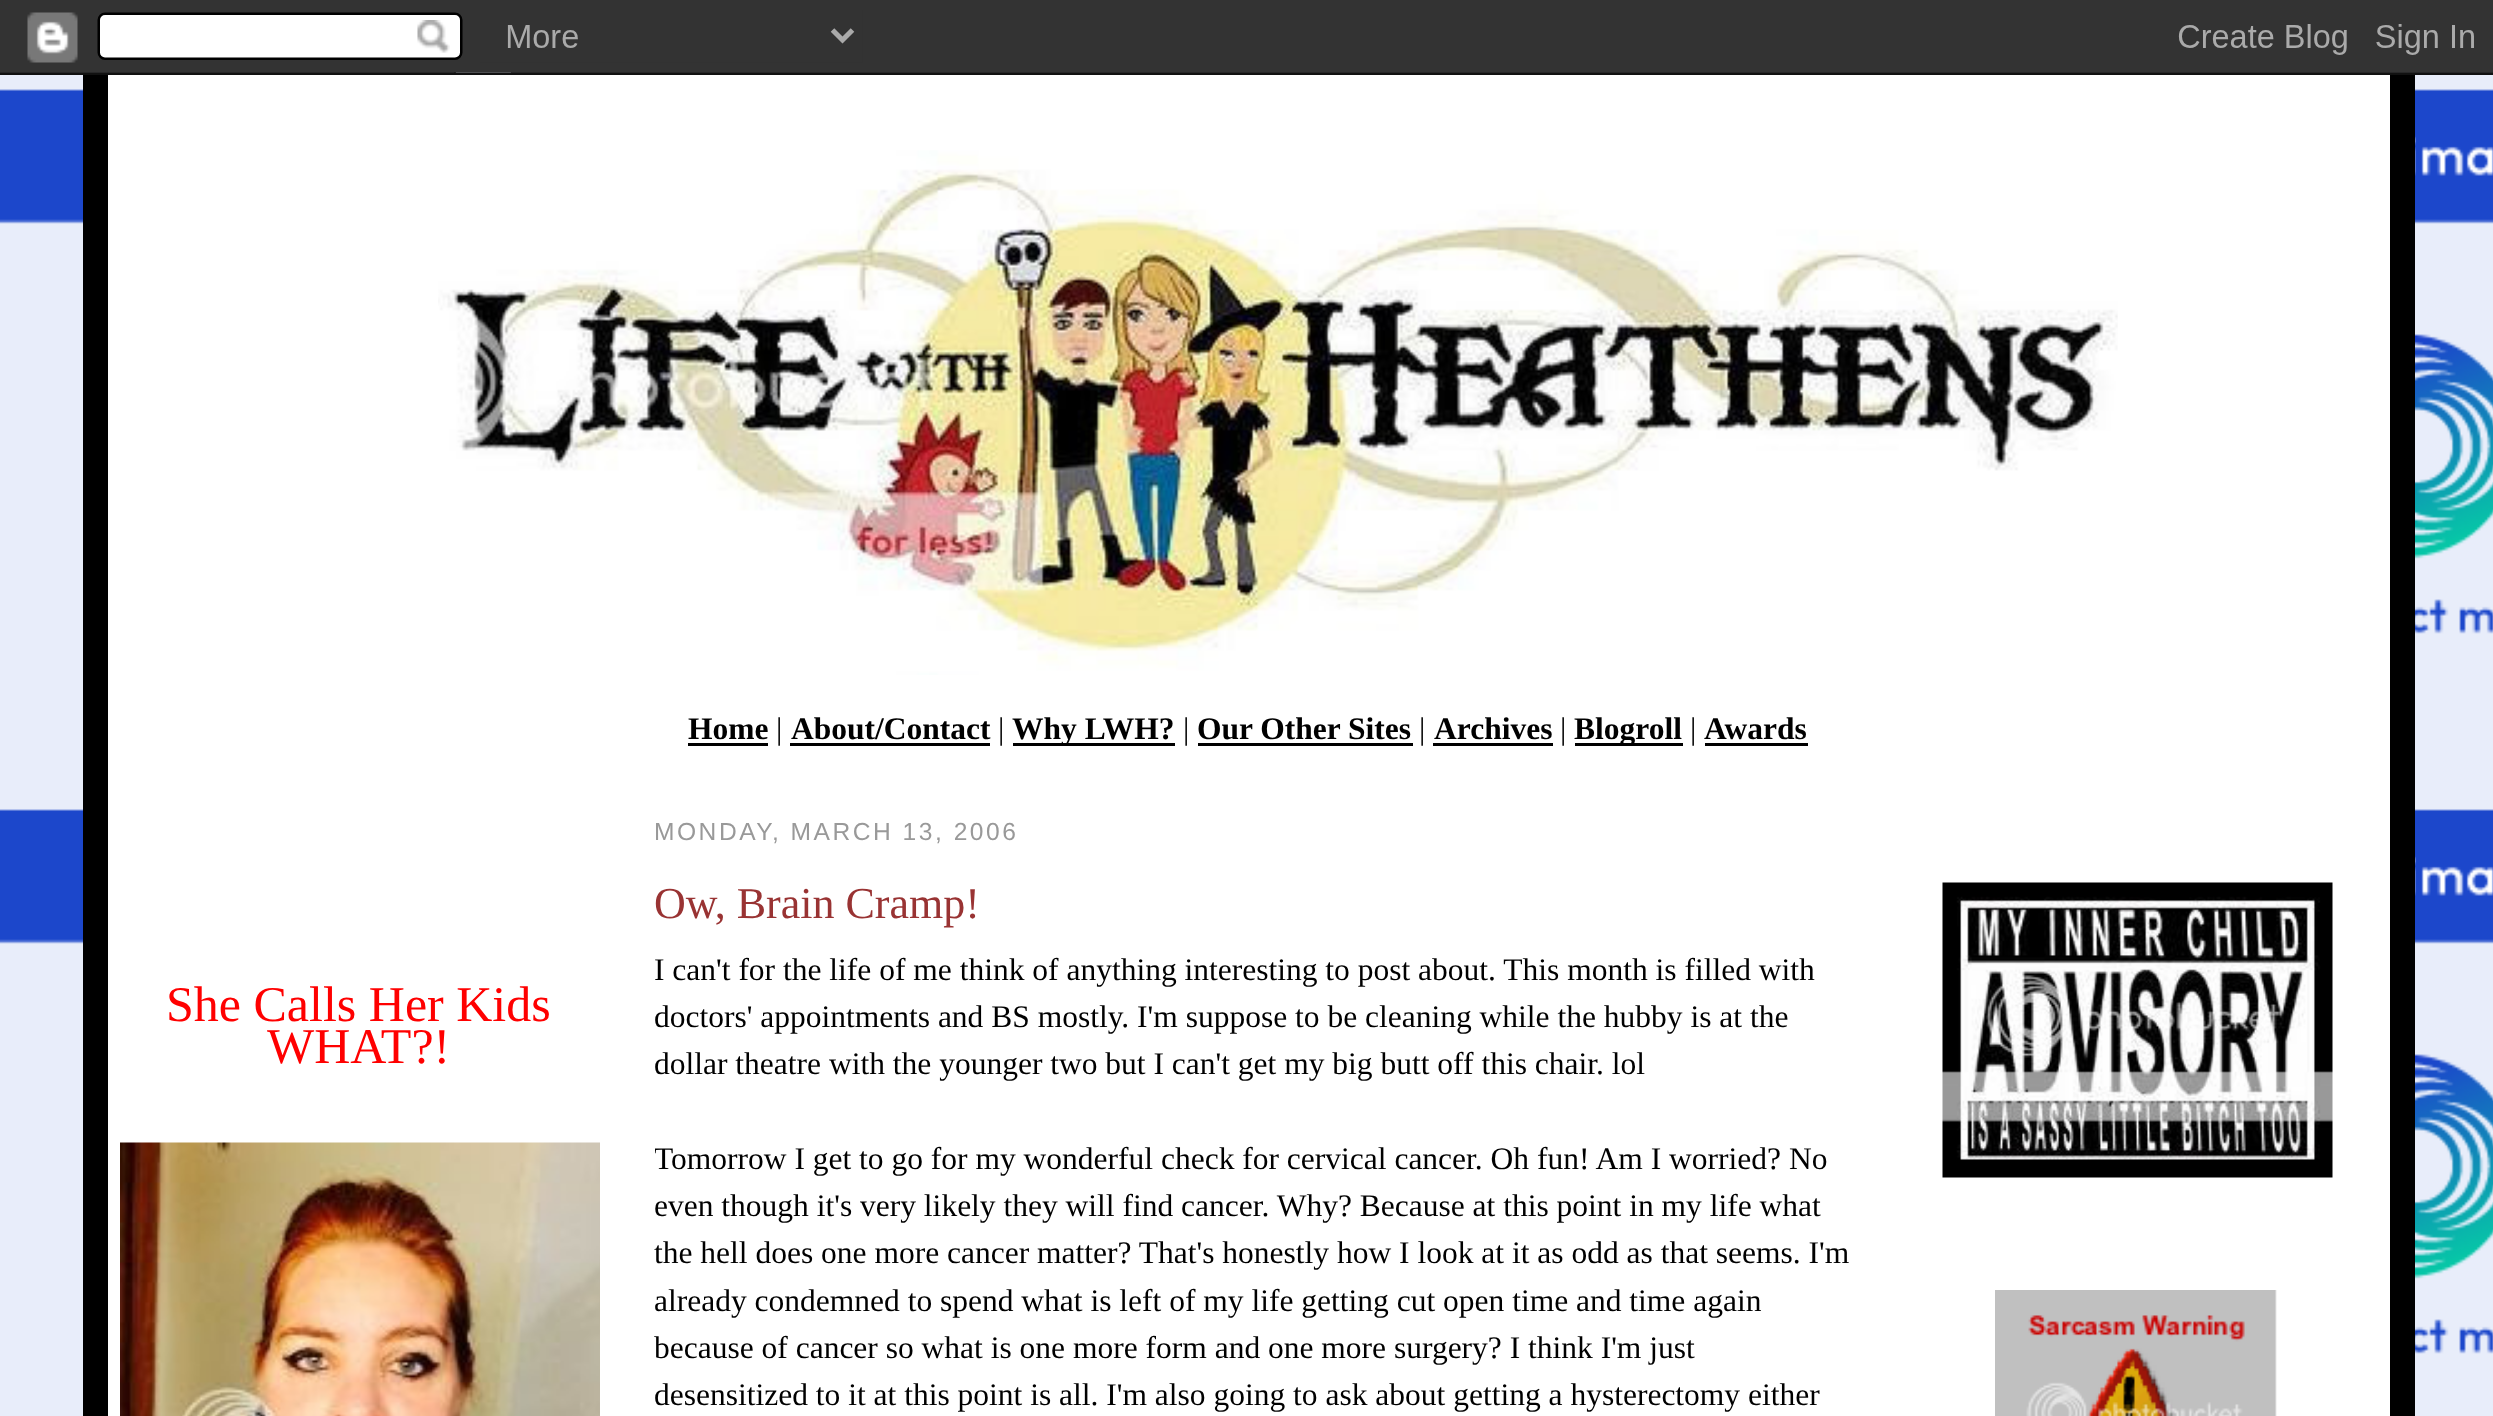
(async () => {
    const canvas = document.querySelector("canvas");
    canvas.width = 2493;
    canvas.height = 1416;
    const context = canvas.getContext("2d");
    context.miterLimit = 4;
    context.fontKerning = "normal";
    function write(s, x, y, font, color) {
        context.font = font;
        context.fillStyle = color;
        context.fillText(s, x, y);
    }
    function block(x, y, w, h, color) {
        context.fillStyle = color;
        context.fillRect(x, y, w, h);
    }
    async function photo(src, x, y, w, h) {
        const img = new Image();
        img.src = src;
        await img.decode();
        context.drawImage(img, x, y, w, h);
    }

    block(0, 0, 2493, 1416, "rgb(255, 255, 255)");
    await photo("media/1.png", 0, 72, 2493, 1344);
    await photo("media/2.png", 0, 0, 2493, 75);
    block(108, 75, 2282, 1341, "rgb(255, 255, 255)");
    block(2390, 75, 25, 1341, "rgb(0, 0, 0)");
    block(83, 75, 25, 1341, "rgb(0, 0, 0)");
    await photo("media/3.png", 438, 150, 1680, 525);
    write("Home", 688, 739, "bold 31.5px Liberation Serif", "rgb(0, 0, 0)");
    block(688, 743, 80, 3, "rgb(0, 0, 0)");
    write("|", 776, 739, "31.5px Liberation Serif", "rgb(0, 0, 0)");
    write("About/Contact", 791, 739, "bold 31.5px Liberation Serif", "rgb(0, 0, 0)");
    block(790, 743, 200, 3, "rgb(0, 0, 0)");
    write("|", 998, 739, "31.5px Liberation Serif", "rgb(0, 0, 0)");
    block(1013, 743, 162, 3, "rgb(0, 0, 0)");
    write("Why LWH?", 1012, 739, "bold 31.5px Liberation Serif", "rgb(0, 0, 0)");
    write("|", 1183, 739, "31.5px Liberation Serif", "rgb(0, 0, 0)");
    write("Our Other Sites", 1197, 739, "bold 31.5px Liberation Serif", "rgb(0, 0, 0)");
    block(1198, 743, 215, 3, "rgb(0, 0, 0)");
    write("|", 1419, 739, "31.5px Liberation Serif", "rgb(0, 0, 0)");
    write("Archives", 1434, 739, "bold 31.5px Liberation Serif", "rgb(0, 0, 0)");
    block(1433, 743, 120, 3, "rgb(0, 0, 0)");
    write("|", 1560, 739, "31.5px Liberation Serif", "rgb(0, 0, 0)");
    block(1575, 743, 108, 3, "rgb(0, 0, 0)");
    write("Blogroll", 1574, 739, "bold 31.5px Liberation Serif", "rgb(0, 0, 0)");
    write("|", 1690, 739, "31.5px Liberation Serif", "rgb(0, 0, 0)");
    write("Awards", 1704, 739, "bold 31.5px Liberation Serif", "rgb(0, 0, 0)");
    block(1705, 743, 103, 3, "rgb(0, 0, 0)");
    write("She Calls Her Kids", 166, 1021, "50px Liberation Serif", "rgb(255, 0, 0)");
    write("WHAT?!", 267, 1063, "50px Liberation Serif", "rgb(255, 0, 0)");
    await photo("media/4.png", 120, 1142, 480, 274);
    context.letterSpacing = "2.5px";
    write("MONDAY, MARCH 13, 2006", 654, 840, "24.6px Liberation Sans", "rgb(153, 153, 153)");
    context.letterSpacing = "0px";
    write("Ow, Brain Cramp!", 654, 918, "44px Liberation Serif", "rgb(153, 51, 51)");
    write("I can't for the life of me think of anything interesting to post about. This month is filled with", 654, 980, "31.5px Liberation Serif", "rgb(0, 0, 0)");
    write("doctors' appointments and BS mostly. I'm suppose to be cleaning while the hubby is at the", 654, 1027, "31.5px Liberation Serif", "rgb(0, 0, 0)");
    write("dollar theatre with the younger two but I can't get my big butt off this chair. lol", 654, 1074, "31.5px Liberation Serif", "rgb(0, 0, 0)");
    context.save();
    context.beginPath();
    context.rect(655, 780, 1200, 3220);
    context.clip();
    write("Tomorrow I get to go for my wonderful check for cervical cancer. Oh fun! Am I worried? No", 654, 1169, "31.5px Liberation Serif", "rgb(0, 0, 0)");
    context.restore();
    write("even though it's very likely they will find cancer. Why? Because at this point in my life what", 654, 1216, "31.5px Liberation Serif", "rgb(0, 0, 0)");
    write("the hell does one more cancer matter? That's honestly how I look at it as odd as that seems. I'm", 654, 1263, "31.5px Liberation Serif", "rgb(0, 0, 0)");
    write("already condemned to spend what is left of my life getting cut open time and time again", 654, 1311, "31.5px Liberation Serif", "rgb(0, 0, 0)");
    write("because of cancer so what is one more form and one more surgery? I think I'm just", 654, 1358, "31.5px Liberation Serif", "rgb(0, 0, 0)");
    write("desensitized to it at this point is all. I'm also going to ask about getting a hysterectomy either", 654, 1405, "31.5px Liberation Serif", "rgb(0, 0, 0)");
    await photo("media/5.png", 1942, 882, 391, 296);
    await photo("media/6.png", 1995, 1290, 282, 126);
})();
